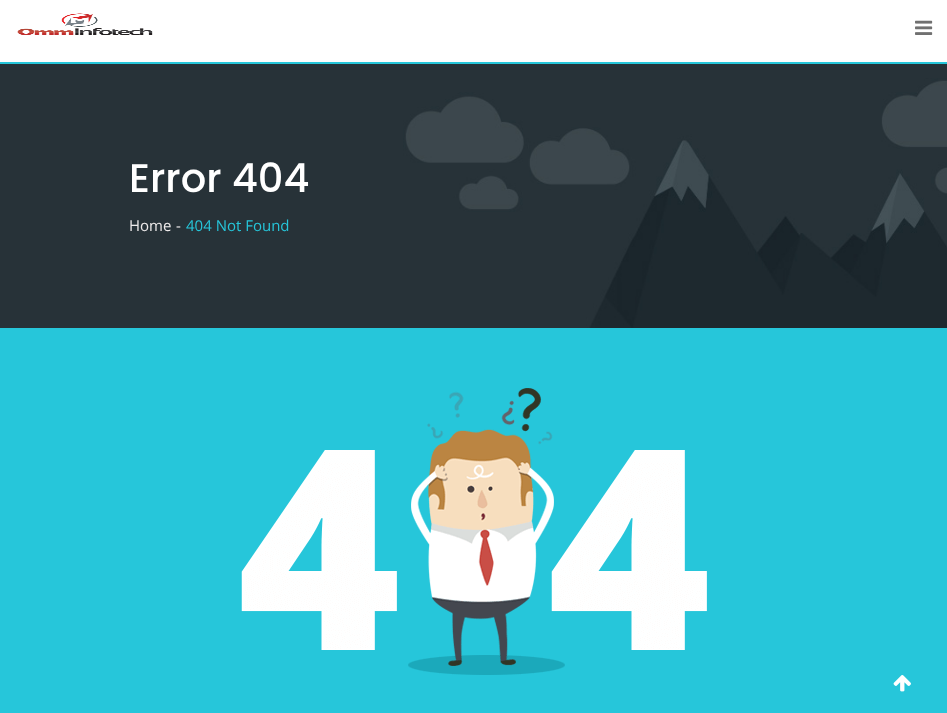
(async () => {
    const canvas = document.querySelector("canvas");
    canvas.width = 947;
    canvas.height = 713;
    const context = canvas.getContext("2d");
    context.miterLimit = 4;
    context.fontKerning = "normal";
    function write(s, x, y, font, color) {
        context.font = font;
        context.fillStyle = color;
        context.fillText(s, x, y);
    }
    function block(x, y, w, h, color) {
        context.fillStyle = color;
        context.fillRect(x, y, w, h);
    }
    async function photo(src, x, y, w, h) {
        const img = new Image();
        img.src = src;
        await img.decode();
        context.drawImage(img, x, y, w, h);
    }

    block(0, 0, 947, 713, "rgb(255, 255, 255)");
    block(0, 62, 947, 2, "rgb(38, 198, 218)");
    await photo("media/1.png", 17, 13, 136, 22);
    await photo("media/2.png", 915, 20, 18, 15);
    await photo("media/3.png", 0, 64, 947, 264);
    write("Error 404", 129, 192, "500 40px Poppins", "rgb(255, 255, 255)");
    write("Home", 129, 231, "15px Open Sans", "rgb(238, 235, 235)");
    write("-", 176, 231, "15px Open Sans", "rgb(238, 235, 235)");
    write("404 Not Found", 186, 231, "15px Open Sans", "rgb(38, 198, 218)");
    block(0, 328, 947, 385, "rgb(38, 198, 218)");
    await photo("media/4.png", 241, 388, 466, 287);
    await photo("media/5.png", 893, 675, 18, 17);
})();
